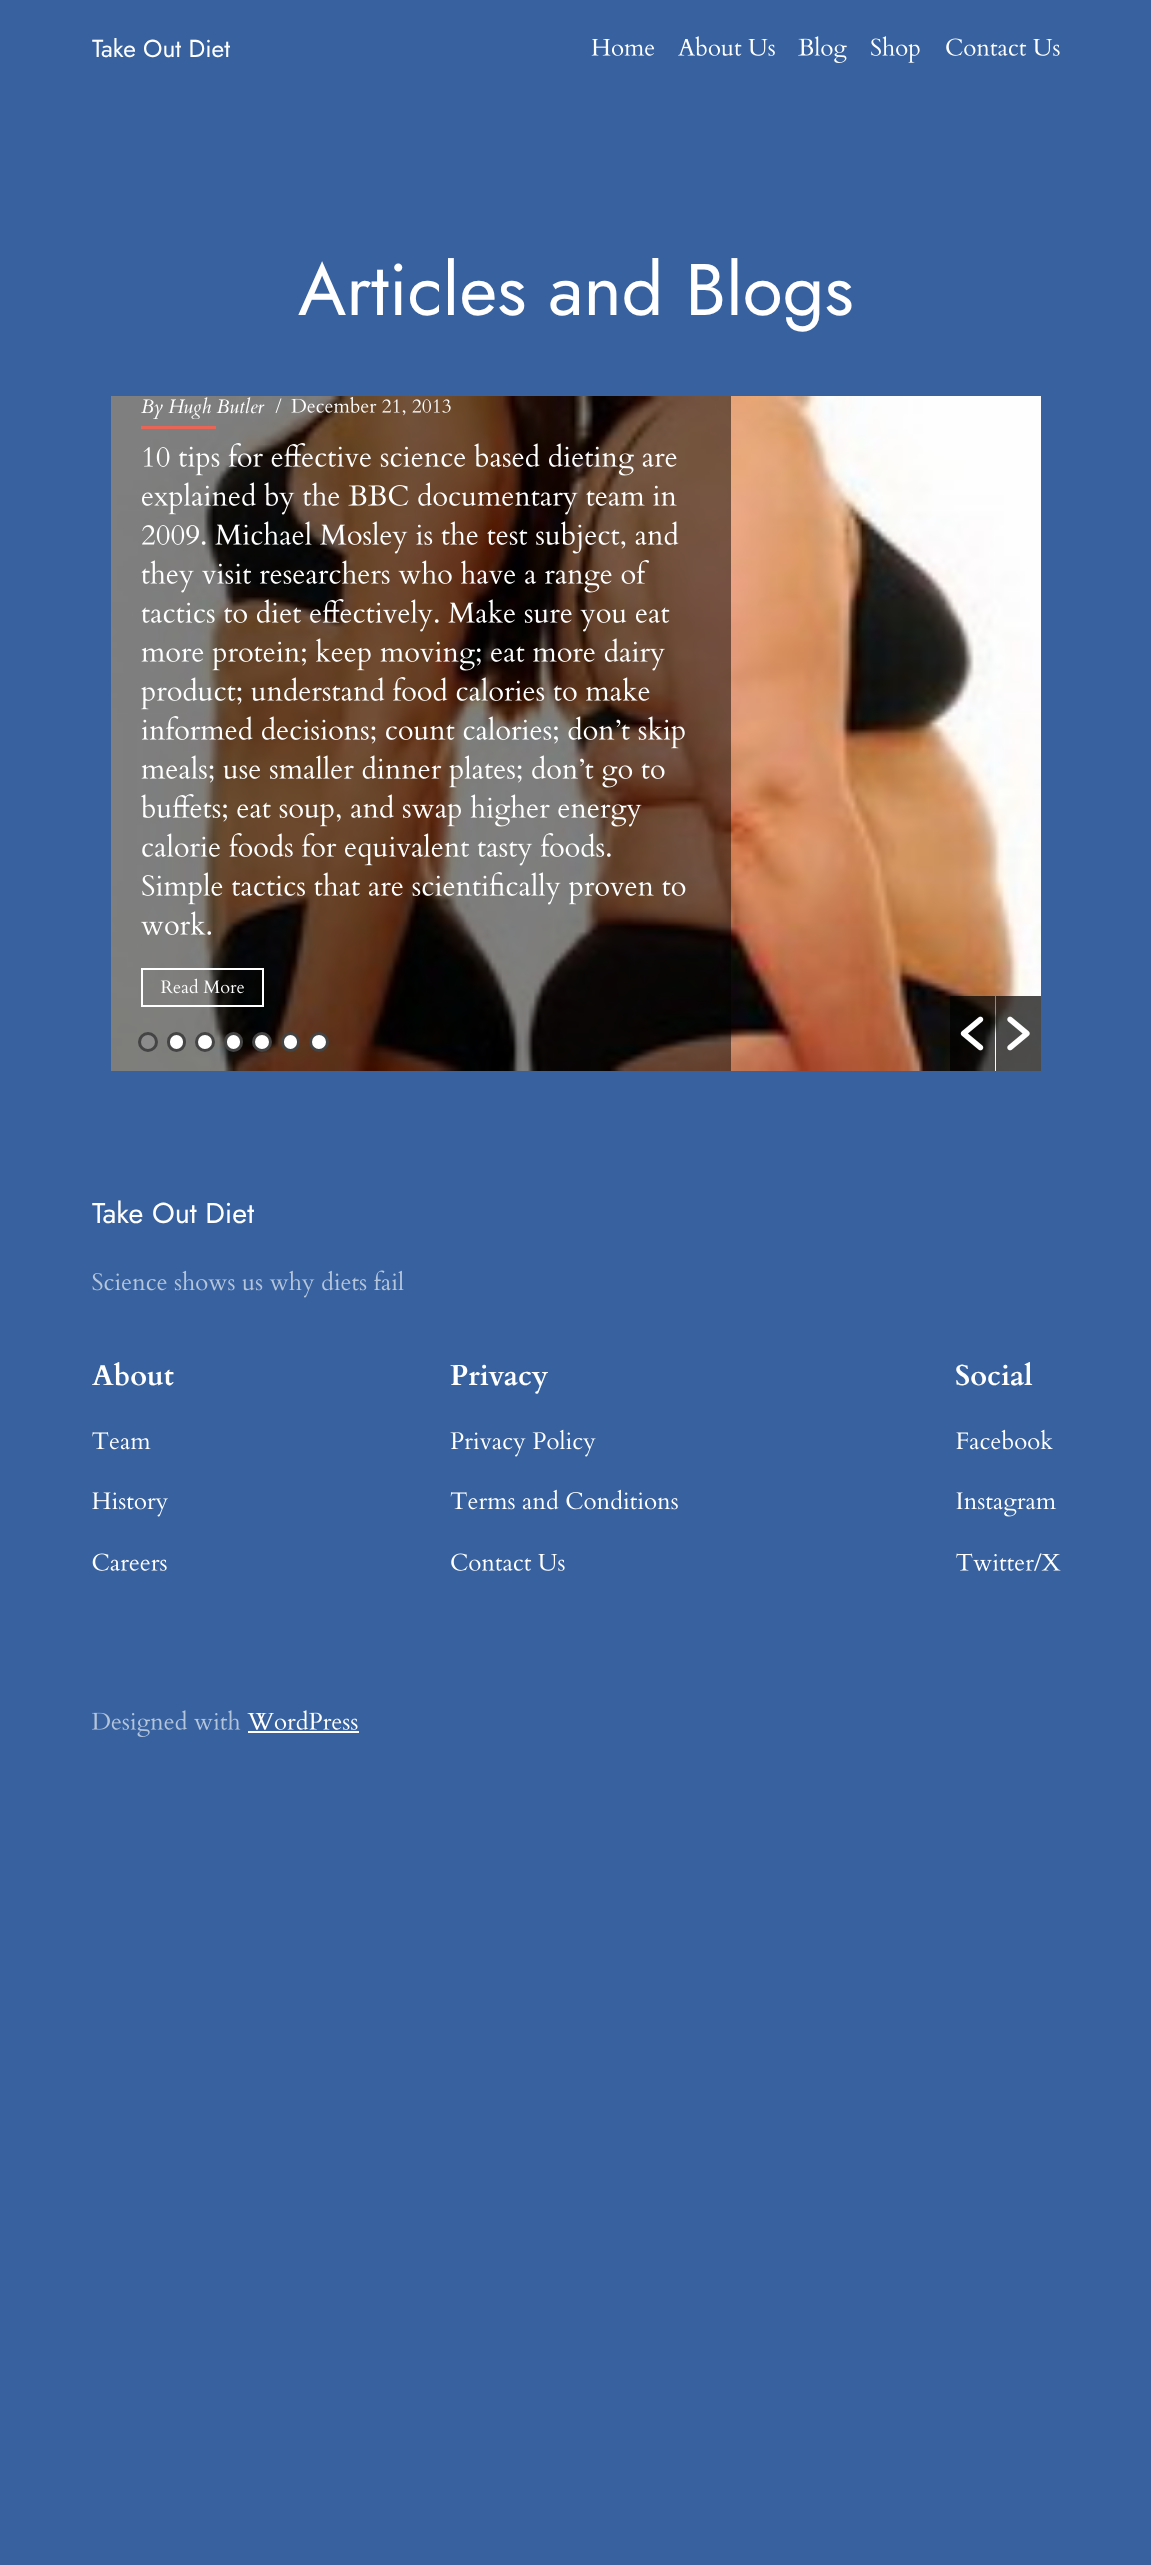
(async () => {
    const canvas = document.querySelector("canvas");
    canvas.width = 1151;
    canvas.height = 2565;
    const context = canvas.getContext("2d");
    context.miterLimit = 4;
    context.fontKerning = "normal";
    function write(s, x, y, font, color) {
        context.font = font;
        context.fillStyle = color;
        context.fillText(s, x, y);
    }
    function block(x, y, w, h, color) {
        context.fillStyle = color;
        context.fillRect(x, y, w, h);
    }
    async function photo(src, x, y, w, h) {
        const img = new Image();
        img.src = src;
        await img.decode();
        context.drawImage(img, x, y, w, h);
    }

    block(0, 0, 1151, 2565, "rgb(56, 98, 159)");
    write("Take Out Diet", 92, 57, "24.5px Jost", "rgb(255, 255, 255)");
    await photo("media/1.png", 591, 39, 64, 17);
    await photo("media/2.png", 678, 36, 97, 20);
    await photo("media/3.png", 798, 36, 49, 27);
    await photo("media/4.png", 871, 36, 49, 27);
    await photo("media/5.png", 946, 38, 114, 18);
    write("Articles and Blogs", 298, 315, "73px Jost", "rgb(255, 255, 255)");
    await photo("media/6.png", 111, 396, 930, 675);
    block(111, 396, 620, 675, "rgba(0, 0, 0, 0.5)");
    write("By Hugh Butler", 141, 413, "italic 19.5px Cardo", "rgb(255, 255, 255)");
    context.beginPath();
    context.moveTo(280.5, 398.5);
    context.lineTo(281.5, 398.5);
    context.lineTo(276.5, 413);
    context.lineTo(275.5, 413);
    context.closePath();
    context.fill();
    await photo("media/7.png", 291, 396, 160, 20);
    block(141, 426, 75, 3, "rgb(233, 102, 86)");
    await photo("media/8.png", 143, 443, 534, 33);
    await photo("media/9.png", 142, 482, 535, 33);
    await photo("media/10.png", 142, 521, 537, 33);
    await photo("media/11.png", 141, 560, 508, 33);
    await photo("media/12.png", 141, 599, 529, 33);
    await photo("media/13.png", 141, 638, 524, 33);
    await photo("media/14.png", 141, 677, 509, 33);
    await photo("media/15.png", 141, 716, 544, 33);
    await photo("media/16.png", 141, 755, 524, 33);
    await photo("media/17.png", 141, 794, 501, 33);
    await photo("media/18.png", 142, 833, 469, 33);
    await photo("media/19.png", 142, 872, 544, 33);
    await photo("media/20.png", 141, 911, 70, 24);
    context.strokeStyle = "rgb(255, 255, 255)";
    context.lineWidth = 2;
    context.strokeRect(142, 969, 121, 37);
    await photo("media/21.png", 160, 978, 84, 16);
    context.fillStyle = "rgb(141, 140, 140)";
    context.beginPath();
    context.arc(148, 1042, 8.5, 0, Math.PI * 2);
    context.fill();
    context.strokeStyle = "rgb(68, 68, 68)";
    context.lineWidth = 3;
    context.stroke();
    context.fillStyle = "rgb(255, 255, 255)";
    context.beginPath();
    context.roundRect(168.5, 1033.5, 16, 17, 8);
    context.fill();
    context.stroke();
    context.beginPath();
    context.arc(205, 1042, 8.5, 0, Math.PI * 2);
    context.fill();
    context.stroke();
    context.beginPath();
    context.roundRect(225.5, 1033.5, 16, 17, 8);
    context.fill();
    context.stroke();
    context.beginPath();
    context.arc(262, 1042, 8.5, 0, Math.PI * 2);
    context.fill();
    context.stroke();
    context.beginPath();
    context.roundRect(282.5, 1033.5, 16, 17, 8);
    context.fill();
    context.stroke();
    context.beginPath();
    context.arc(319, 1042, 8.5, 0, Math.PI * 2);
    context.fill();
    context.stroke();
    block(950, 996, 45, 75, "rgba(0, 0, 0, 0.7)");
    await photo("media/22.png", 960, 1016, 24, 35);
    block(996, 996, 45, 75, "rgba(0, 0, 0, 0.7)");
    await photo("media/23.png", 1007, 1016, 23, 35);
    write("Take Out Diet", 92, 1223, "28.75px Jost", "rgb(255, 255, 255)");
    await photo("media/24.png", 92, 1270, 312, 28);
    write("About", 92, 1385, "bold 28.75px Cardo", "rgb(255, 255, 255)");
    await photo("media/25.png", 92, 1432, 59, 18);
    await photo("media/26.png", 92, 1492, 76, 25);
    await photo("media/27.png", 92, 1553, 75, 18);
    write("Privacy", 450, 1385, "bold 28.75px Cardo", "rgb(255, 255, 255)");
    await photo("media/28.png", 450, 1429, 146, 28);
    await photo("media/29.png", 450, 1489, 228, 21);
    await photo("media/5.png", 451, 1553, 114, 18);
    write("Social", 955, 1385, "bold 28.75px Cardo", "rgb(255, 255, 255)");
    await photo("media/30.png", 956, 1429, 97, 21);
    await photo("media/31.png", 956, 1492, 101, 25);
    await photo("media/32.png", 956, 1553, 105, 18);
    await photo("media/33.png", 92, 1710, 149, 27);
    await photo("media/34.png", 247, 1710, 111, 20);
    block(248, 1731, 111, 2, "rgb(255, 255, 255)");
})();
